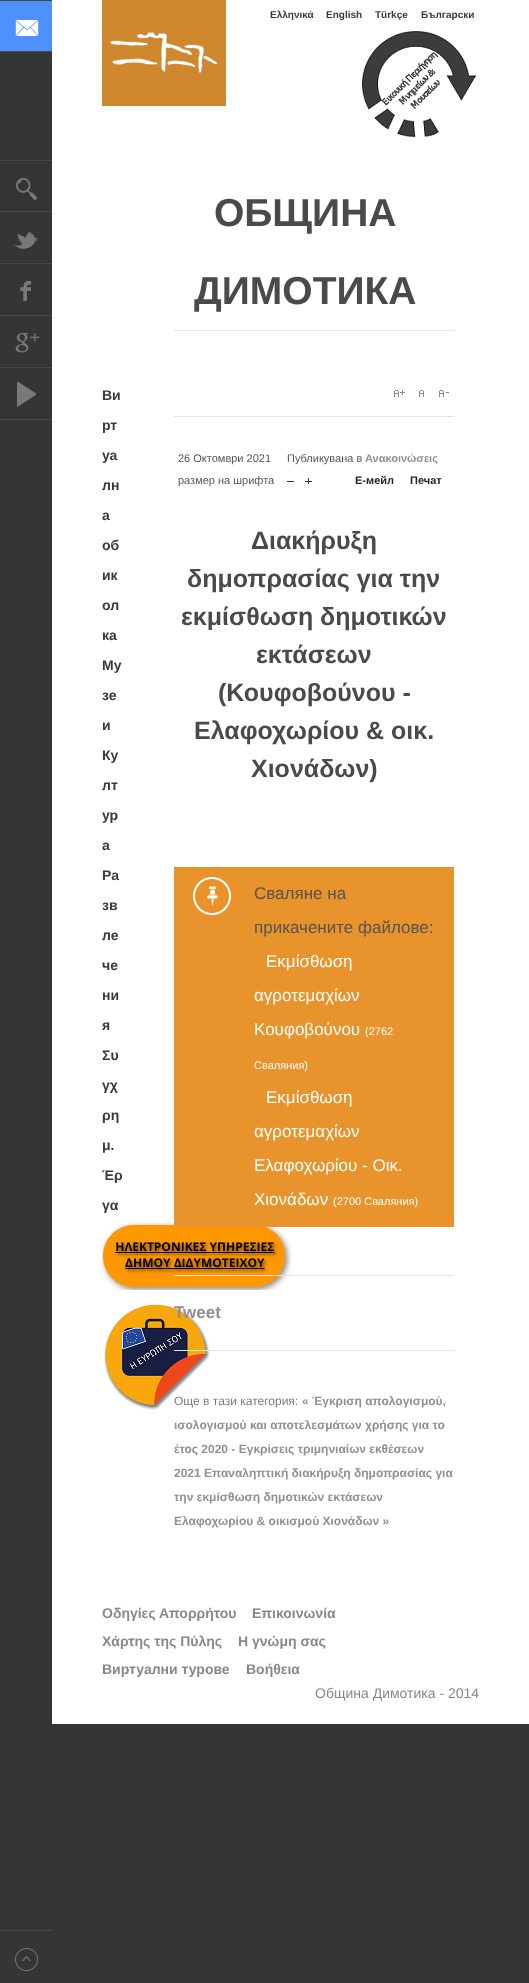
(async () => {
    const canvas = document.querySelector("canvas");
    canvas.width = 529;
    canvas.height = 1983;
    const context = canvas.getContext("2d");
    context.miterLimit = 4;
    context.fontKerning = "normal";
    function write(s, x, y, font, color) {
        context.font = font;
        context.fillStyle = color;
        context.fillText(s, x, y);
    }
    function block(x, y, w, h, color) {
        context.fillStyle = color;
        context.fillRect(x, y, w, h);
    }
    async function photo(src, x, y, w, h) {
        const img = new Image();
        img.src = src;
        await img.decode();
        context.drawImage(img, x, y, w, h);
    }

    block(0, 0, 529, 1983, "rgb(53, 53, 53)");
    block(52, 0, 477, 1724, "rgb(255, 255, 255)");
    await photo("media/1.png", 0, 1, 52, 50);
    block(0, 0, 52, 1, "rgb(72, 72, 72)");
    block(0, 51, 52, 1, "rgb(72, 72, 72)");
    await photo("media/2.png", 16, 178, 21, 22);
    block(0, 160, 52, 1, "rgb(72, 72, 72)");
    block(0, 211, 52, 1, "rgb(72, 72, 72)");
    await photo("media/3.png", 13, 232, 25, 17);
    block(0, 263, 52, 1, "rgb(72, 72, 72)");
    await photo("media/4.png", 20, 281, 11, 20);
    block(0, 315, 52, 1, "rgb(72, 72, 72)");
    await photo("media/5.png", 15, 333, 25, 20);
    block(0, 367, 52, 1, "rgb(72, 72, 72)");
    await photo("media/6.png", 17, 382, 19, 25);
    block(0, 419, 52, 1, "rgb(72, 72, 72)");
    block(102, 0, 124, 106, "rgb(208, 136, 47)");
    await photo("media/7.png", 110, 32, 107, 41);
    write("Ελληνικά", 270, 18, "bold 10px Liberation Sans", "rgb(58, 58, 58)");
    write("English", 326, 18, "bold 10px Liberation Sans", "rgb(58, 58, 58)");
    write("Türkçe", 375, 18, "bold 10px Liberation Sans", "rgb(58, 58, 58)");
    write("Български", 421, 18, "bold 10px Liberation Sans", "rgb(58, 58, 58)");
    await photo("media/8.png", 362, 31, 114, 107);
    write("ОБЩИНА", 214, 226, "bold 39px Liberation Sans", "rgb(74, 74, 74)");
    write("ДИМОТИКА", 194, 304, "bold 39px Liberation Sans", "rgb(74, 74, 74)");
    write("Ви", 102, 400, "bold 14px Liberation Sans", "rgb(58, 58, 58)");
    write("рт", 102, 430, "bold 14px Liberation Sans", "rgb(58, 58, 58)");
    write("уа", 102, 460, "bold 14px Liberation Sans", "rgb(58, 58, 58)");
    write("лн", 102, 490, "bold 14px Liberation Sans", "rgb(58, 58, 58)");
    write("а", 102, 520, "bold 14px Liberation Sans", "rgb(58, 58, 58)");
    write("об", 102, 550, "bold 14px Liberation Sans", "rgb(58, 58, 58)");
    write("ик", 102, 580, "bold 14px Liberation Sans", "rgb(58, 58, 58)");
    write("ол", 102, 610, "bold 14px Liberation Sans", "rgb(58, 58, 58)");
    write("ка", 102, 640, "bold 14px Liberation Sans", "rgb(58, 58, 58)");
    write("Му", 102, 670, "bold 14px Liberation Sans", "rgb(58, 58, 58)");
    write("зе", 102, 700, "bold 14px Liberation Sans", "rgb(58, 58, 58)");
    write("и", 102, 730, "bold 14px Liberation Sans", "rgb(58, 58, 58)");
    write("Ку", 102, 760, "bold 14px Liberation Sans", "rgb(58, 58, 58)");
    write("лт", 102, 790, "bold 14px Liberation Sans", "rgb(58, 58, 58)");
    write("ур", 102, 820, "bold 14px Liberation Sans", "rgb(58, 58, 58)");
    write("а", 102, 850, "bold 14px Liberation Sans", "rgb(58, 58, 58)");
    write("Ра", 102, 880, "bold 14px Liberation Sans", "rgb(58, 58, 58)");
    write("зв", 102, 910, "bold 14px Liberation Sans", "rgb(58, 58, 58)");
    write("ле", 102, 940, "bold 14px Liberation Sans", "rgb(58, 58, 58)");
    write("че", 102, 970, "bold 14px Liberation Sans", "rgb(58, 58, 58)");
    write("ни", 102, 1000, "bold 14px Liberation Sans", "rgb(58, 58, 58)");
    write("я", 102, 1030, "bold 14px Liberation Sans", "rgb(58, 58, 58)");
    write("Συ", 102, 1060, "bold 14px Liberation Sans", "rgb(58, 58, 58)");
    write("γχ", 102, 1090, "bold 14px Liberation Sans", "rgb(58, 58, 58)");
    write("ρη", 102, 1120, "bold 14px Liberation Sans", "rgb(58, 58, 58)");
    write("μ.", 102, 1150, "bold 14px Liberation Sans", "rgb(58, 58, 58)");
    write("Έρ", 102, 1180, "bold 14px Liberation Sans", "rgb(58, 58, 58)");
    write("γα", 102, 1210, "bold 14px Liberation Sans", "rgb(58, 58, 58)");
    await photo("media/9.png", 102, 1222, 190, 68);
    await photo("media/10.png", 104, 1304, 106, 106);
    block(174, 330, 280, 1, "rgb(229, 229, 229)");
    block(174, 416, 280, 1, "rgb(229, 229, 229)");
    await photo("media/11.png", 394, 390, 11, 7);
    await photo("media/12.png", 419, 390, 5, 7);
    await photo("media/13.png", 439, 390, 10, 7);
    write("26 Октомври 2021", 178, 462, "11px Liberation Sans", "rgb(85, 85, 85)");
    write("Публикувана в", 287, 462, "11px Liberation Sans", "rgb(85, 85, 85)");
    write("Ανακοινώσεις", 365, 462, "bold 11px Liberation Sans", "rgb(144, 144, 144)");
    write("размер на шрифта", 178, 484, "11px Liberation Sans", "rgb(85, 85, 85)");
    block(287, 481, 7, 1, "rgb(51, 53, 58)");
    await photo("media/14.png", 305, 478, 7, 6);
    write("Е-мейл", 355, 484, "bold 11px Liberation Sans", "rgb(36, 36, 36)");
    write("Печат", 410, 484, "bold 11px Liberation Sans", "rgb(36, 36, 36)");
    write("Διακήρυξη", 251, 549, "bold 25px Liberation Sans", "rgb(74, 74, 74)");
    write("δημοπρασίας για την", 187, 587, "bold 25px Liberation Sans", "rgb(74, 74, 74)");
    write("εκμίσθωση δημοτικών", 181, 625, "bold 25px Liberation Sans", "rgb(74, 74, 74)");
    write("εκτάσεων", 256, 663, "bold 25px Liberation Sans", "rgb(74, 74, 74)");
    write("(Κουφοβούνου -", 218, 701, "bold 25px Liberation Sans", "rgb(74, 74, 74)");
    write("Ελαφοχωρίου & οικ.", 194, 739, "bold 25px Liberation Sans", "rgb(74, 74, 74)");
    write("Χιονάδων)", 251, 777, "bold 25px Liberation Sans", "rgb(74, 74, 74)");
    block(174, 867, 280, 360, "rgb(232, 147, 43)");
    await photo("media/15.png", 193, 877, 38, 38);
    write("Сваляне на", 254, 899, "17px Liberation Sans", "rgb(85, 85, 85)");
    write("прикачените файлове:", 254, 933, "17px Liberation Sans", "rgb(85, 85, 85)");
    write("Εκμίσθωση", 266, 967, "17px Liberation Sans", "rgb(255, 255, 255)");
    write("αγροτεμαχίων", 254, 1001, "17px Liberation Sans", "rgb(255, 255, 255)");
    write("Κουφοβούνου", 254, 1035, "17px Liberation Sans", "rgb(255, 255, 255)");
    write("(2762", 365, 1035, "11px Liberation Sans", "rgb(255, 255, 255)");
    write("Сваляния)", 254, 1069, "11px Liberation Sans", "rgb(255, 255, 255)");
    write("Εκμίσθωση", 266, 1103, "17px Liberation Sans", "rgb(255, 255, 255)");
    write("αγροτεμαχίων", 254, 1137, "17px Liberation Sans", "rgb(255, 255, 255)");
    write("Ελαφοχωρίου - Οικ.", 254, 1171, "17px Liberation Sans", "rgb(255, 255, 255)");
    write("Χιονάδων", 254, 1205, "17px Liberation Sans", "rgb(255, 255, 255)");
    write("(2700 Сваляния)", 333, 1205, "11px Liberation Sans", "rgb(255, 255, 255)");
    block(174, 1275, 280, 1, "rgb(229, 229, 229)");
    block(174, 1350, 280, 1, "rgb(229, 229, 229)");
    write("Tweet", 174, 1318, "bold 17px Liberation Sans", "rgb(144, 144, 144)");
    write("Още в тази категория:", 174, 1405, "12px Liberation Sans", "rgb(125, 123, 122)");
    write("« Έγκριση απολογισμού,", 302, 1405, "bold 12px Liberation Sans", "rgb(144, 144, 144)");
    write("ισολογισμού και αποτελεσμάτων χρήσης για το", 174, 1429, "bold 12px Liberation Sans", "rgb(144, 144, 144)");
    write("έτος 2020 - Εγκρίσεις τριμηνιαίων εκθέσεων", 174, 1453, "bold 12px Liberation Sans", "rgb(144, 144, 144)");
    write("2021 Επαναληπτική διακήρυξη δημοπρασίας για", 174, 1477, "bold 12px Liberation Sans", "rgb(144, 144, 144)");
    write("την εκμίσθωση δημοτικών εκτάσεων", 174, 1501, "bold 12px Liberation Sans", "rgb(144, 144, 144)");
    write("Ελαφοχωρίου & οικισμού Χιονάδων »", 174, 1525, "bold 12px Liberation Sans", "rgb(144, 144, 144)");
    write("Οδηγίες Απορρήτου", 102, 1618, "bold 14px Liberation Sans", "rgb(136, 136, 136)");
    write("Επικοινωνία", 252, 1618, "bold 14px Liberation Sans", "rgb(136, 136, 136)");
    write("Χάρτης της Πύλης", 102, 1646, "bold 14px Liberation Sans", "rgb(136, 136, 136)");
    write("Η γνώμη σας", 238, 1646, "bold 14px Liberation Sans", "rgb(136, 136, 136)");
    write("Виртуални турове", 102, 1674, "bold 14px Liberation Sans", "rgb(136, 136, 136)");
    write("Βοήθεια", 246, 1674, "bold 14px Liberation Sans", "rgb(136, 136, 136)");
    write("Община Димотика - 2014", 315, 1698, "14px Liberation Sans", "rgb(136, 136, 136)");
    await photo("media/16.png", 15, 1948, 23, 23);
    block(0, 1930, 52, 1, "rgb(72, 72, 72)");
})();
